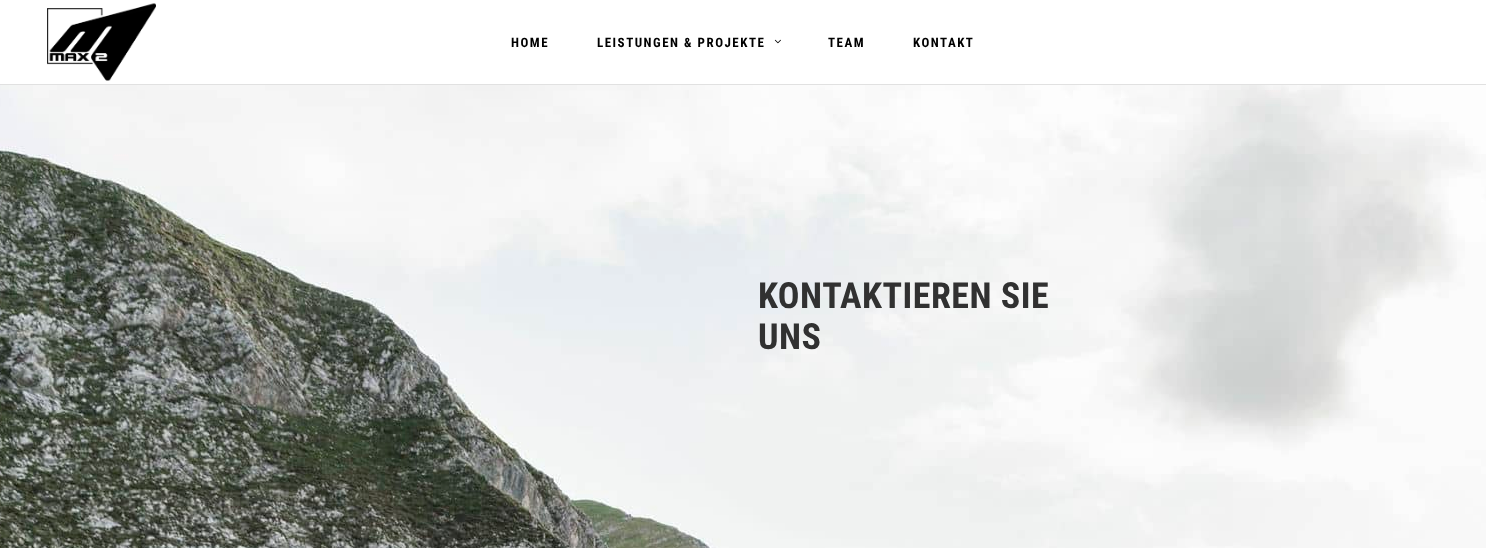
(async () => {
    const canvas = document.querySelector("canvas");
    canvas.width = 1486;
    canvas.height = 548;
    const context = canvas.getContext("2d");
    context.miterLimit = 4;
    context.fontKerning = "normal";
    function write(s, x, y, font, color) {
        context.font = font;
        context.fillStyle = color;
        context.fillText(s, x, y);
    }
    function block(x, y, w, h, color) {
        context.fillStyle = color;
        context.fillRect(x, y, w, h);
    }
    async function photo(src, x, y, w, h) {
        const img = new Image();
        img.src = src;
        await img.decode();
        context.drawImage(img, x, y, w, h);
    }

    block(0, 0, 1486, 548, "rgb(255, 255, 255)");
    block(0, 84, 1486, 1, "rgb(225, 225, 225)");
    await photo("media/1.png", 47, 3, 109, 78);
    context.letterSpacing = "1.5px";
    write("HOME", 511, 47, "bold 13px Roboto Condensed", "rgb(0, 0, 0)");
    write("LEISTUNGEN & PROJEKTE", 597, 47, "bold 13px Roboto Condensed", "rgb(0, 0, 0)");
    await photo("media/2.png", 774, 39, 7, 5);
    write("TEAM", 828, 47, "bold 13px Roboto Condensed", "rgb(0, 0, 0)");
    write("KONTAKT", 913, 47, "bold 13px Roboto Condensed", "rgb(0, 0, 0)");
    await photo("media/3.png", 0, 85, 1486, 463);
    context.letterSpacing = "0.5px";
    write("KONTAKTIEREN SIE", 758, 308, "bold 36px Roboto Condensed", "rgb(49, 49, 49)");
    write("UNS", 758, 349, "bold 36px Roboto Condensed", "rgb(49, 49, 49)");
})();
